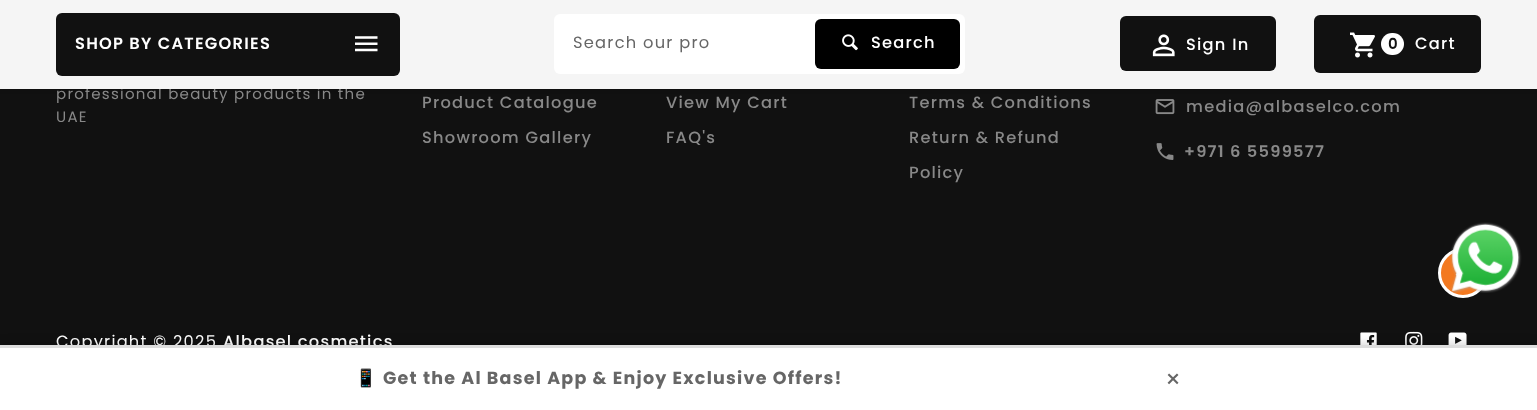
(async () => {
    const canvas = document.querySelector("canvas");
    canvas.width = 1537;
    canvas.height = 410;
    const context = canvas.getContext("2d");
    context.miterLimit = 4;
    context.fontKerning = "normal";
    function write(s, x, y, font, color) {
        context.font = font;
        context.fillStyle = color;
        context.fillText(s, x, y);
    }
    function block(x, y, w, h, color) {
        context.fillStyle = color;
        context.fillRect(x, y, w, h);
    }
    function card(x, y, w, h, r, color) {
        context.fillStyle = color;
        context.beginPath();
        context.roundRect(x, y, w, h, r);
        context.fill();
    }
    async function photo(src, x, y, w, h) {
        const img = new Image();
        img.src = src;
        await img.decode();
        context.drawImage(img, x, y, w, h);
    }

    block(0, 0, 1537, 410, "rgb(17, 17, 17)");
    context.fillStyle = "rgba(0, 0, 0, 0.2)";
    context.filter = "blur(2.5px)";
    context.beginPath();
    context.rect(0, 0, 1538, 89);
    context.fill();
    context.filter = "none";
    context.letterSpacing = "1.25px";
    write("professional beauty products in the", 56, 99, "15px Poppins", "rgb(136, 136, 136)");
    block(0, 0, 1537, 89, "rgb(245, 245, 245)");
    card(56, 13, 344, 63, 6, "rgb(17, 17, 17)");
    write("SHOP BY CATEGORIES", 75, 49, "600 16.25px Poppins", "rgb(255, 255, 255)");
    await photo("media/1.png", 355, 36, 23, 16);
    card(554, 14, 411, 60, 6, "rgb(255, 255, 255)");
    write("Search our pro", 573, 48, "16.25px Poppins", "rgb(102, 102, 102)");
    card(815, 19, 145, 50, 6, "rgb(0, 0, 0)");
    await photo("media/2.png", 842, 34, 16, 17);
    write("Search", 871, 48, "500 16.25px Poppins", "rgb(255, 255, 255)");
    card(1120, 16, 156, 55, 6, "rgb(17, 17, 17)");
    await photo("media/3.png", 1152, 34, 23, 23);
    write("Sign In", 1186, 50, "500 16.25px Poppins", "rgb(255, 255, 255)");
    card(1314, 15, 167, 58, 6, "rgb(17, 17, 17)");
    await photo("media/4.png", 1350, 32, 25, 26);
    card(1381, 33, 23, 22, 11, "rgb(255, 255, 255)");
    write("0", 1388, 49, "600 15px Poppins", "rgb(17, 17, 17)");
    write("Cart", 1415, 49, "500 16.25px Poppins", "rgb(255, 255, 255)");
    write("UAE", 56, 122, "15px Poppins", "rgb(136, 136, 136)");
    write("Product Catalogue", 422, 108, "500 16.25px Poppins", "rgb(136, 136, 136)");
    write("Showroom Gallery", 422, 143, "500 16.25px Poppins", "rgb(136, 136, 136)");
    write("View My Cart", 666, 108, "500 16.25px Poppins", "rgb(136, 136, 136)");
    write("FAQ's", 666, 143, "500 16.25px Poppins", "rgb(136, 136, 136)");
    write("Terms & Conditions", 909, 108, "500 16.25px Poppins", "rgb(136, 136, 136)");
    write("Return & Refund", 909, 143, "500 16.25px Poppins", "rgb(136, 136, 136)");
    write("Policy", 909, 178, "500 16.25px Poppins", "rgb(136, 136, 136)");
    await photo("media/5.png", 1155, 99, 20, 16);
    write("media@albaselco.com", 1186, 112, "500 16.25px Poppins", "rgb(136, 136, 136)");
    await photo("media/6.png", 1156, 143, 18, 17);
    write("+971 6 5599577", 1184, 157, "600 16.25px Poppins", "rgb(136, 136, 136)");
    write("Copyright © 2025", 56, 347, "16.25px Poppins", "rgb(255, 255, 255)");
    write("Albasel cosmetics", 223, 347, "500 16.25px Poppins", "rgb(255, 255, 255)");
    await photo("media/7.png", 1360, 332, 17, 13);
    await photo("media/8.png", 1405, 331, 18, 14);
    await photo("media/9.png", 1448, 332, 19, 13);
    context.fillStyle = "rgb(243, 121, 32)";
    context.beginPath();
    context.arc(1463, 273, 23.5, 0, Math.PI * 2);
    context.fill();
    context.strokeStyle = "rgb(255, 255, 255)";
    context.lineWidth = 3;
    context.stroke();
    await photo("media/10.png", 1455, 272, 3, 4);
    await photo("media/11.png", 1450, 222, 72, 71);
    context.fillStyle = "rgba(0, 0, 0, 0.15)";
    context.filter = "blur(5px)";
    context.beginPath();
    context.rect(0, 343, 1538, 65);
    context.fill();
    context.filter = "none";
    block(0, 348, 1537, 62, "rgb(255, 255, 255)");
    block(0, 345, 1537, 3, "rgb(221, 221, 221)");
    write("📱", 355, 384, "bold 17.5px Noto Color Emoji", "rgb(102, 102, 102)");
    write("Get the Al Basel App & Enjoy Exclusive Offers!", 383, 384, "bold 17.5px Poppins", "rgb(102, 102, 102)");
    write("×", 1165, 388, "25px Poppins", "rgb(102, 102, 102)");
})();
